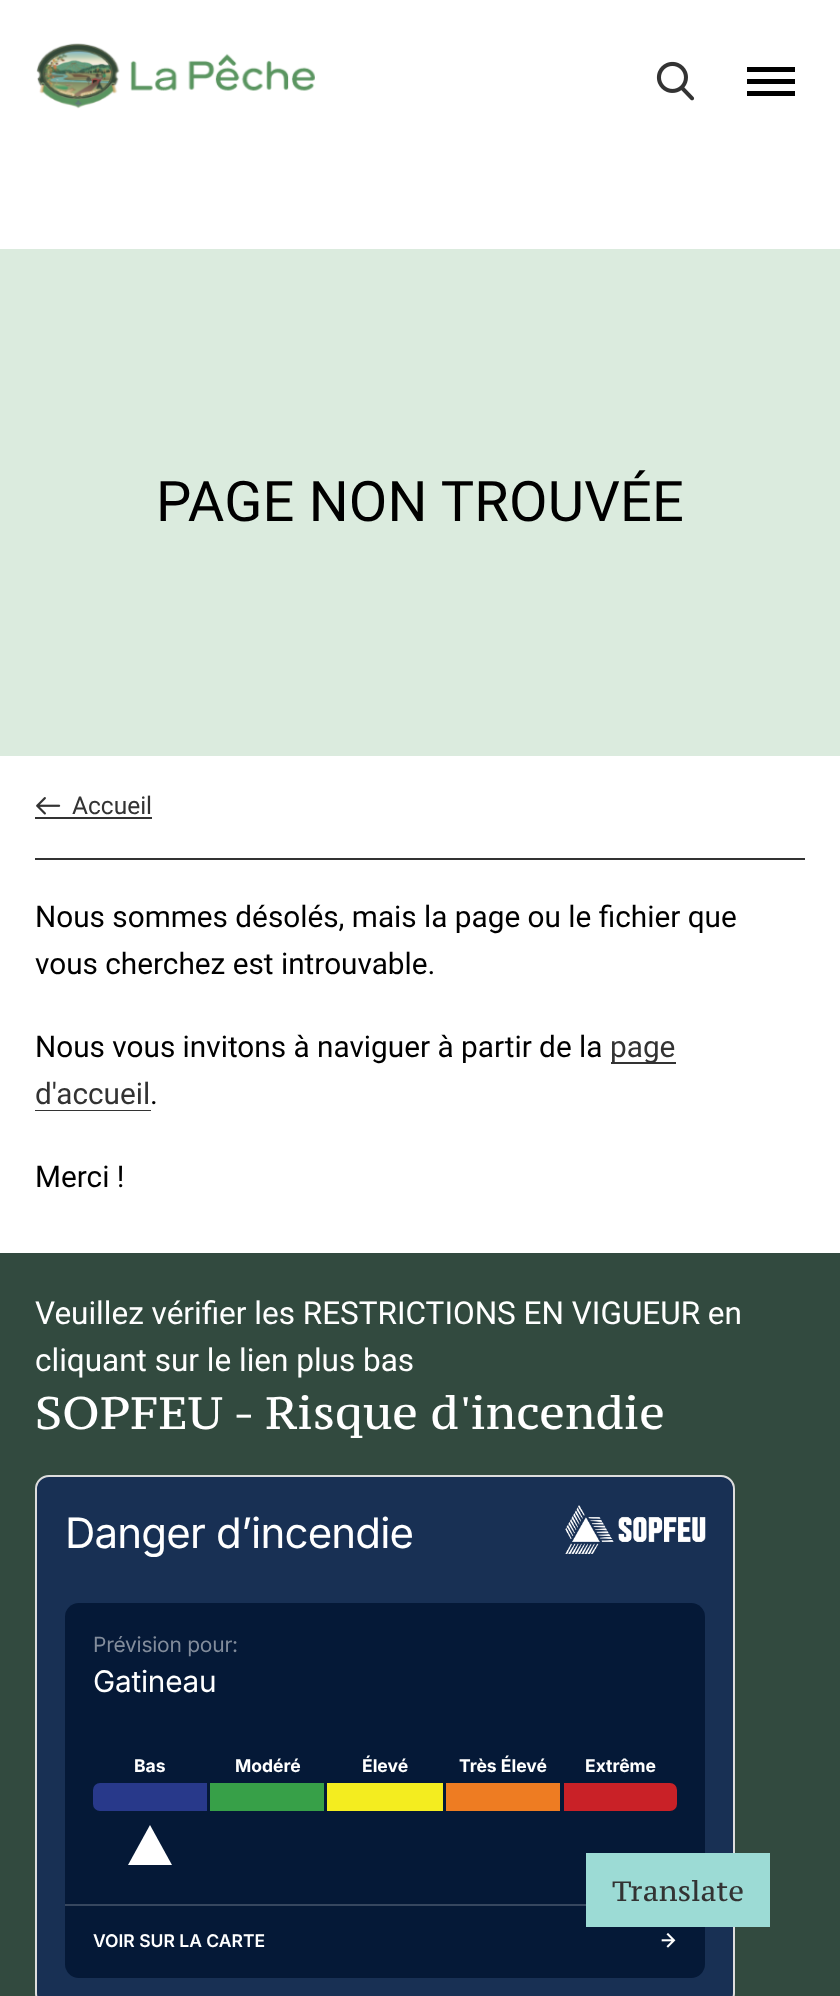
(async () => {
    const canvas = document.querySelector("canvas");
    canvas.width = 840;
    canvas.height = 1996;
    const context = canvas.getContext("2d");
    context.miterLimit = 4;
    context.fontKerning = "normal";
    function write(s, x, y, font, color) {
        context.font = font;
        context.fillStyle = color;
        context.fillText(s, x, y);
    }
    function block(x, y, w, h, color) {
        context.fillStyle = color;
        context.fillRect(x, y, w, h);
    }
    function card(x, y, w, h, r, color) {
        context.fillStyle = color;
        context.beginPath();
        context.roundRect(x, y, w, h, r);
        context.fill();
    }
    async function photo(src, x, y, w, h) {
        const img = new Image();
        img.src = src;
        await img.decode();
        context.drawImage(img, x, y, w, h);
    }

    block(0, 0, 840, 1996, "rgb(255, 255, 255)");
    await photo("media/1.png", 36, 43, 279, 66);
    await photo("media/2.png", 656, 61, 39, 40);
    block(747, 79, 48, 5, "rgb(0, 0, 0)");
    block(747, 67, 48, 5, "rgb(0, 0, 0)");
    block(747, 91, 48, 5, "rgb(0, 0, 0)");
    block(0, 249, 840, 507, "rgb(219, 235, 222)");
    context.letterSpacing = "0.2px";
    write("PAGE NON TROUVÉE", 156, 521, "56px Roboto", "rgb(0, 0, 0)");
    block(35, 858, 770, 2, "rgb(51, 51, 51)");
    block(35, 817, 117, 2, "rgb(51, 51, 51)");
    await photo("media/3.png", 36, 797, 25, 18);
    context.letterSpacing = "0px";
    write("Accueil", 72, 814, "24.5px Roboto", "rgb(51, 51, 51)");
    write("Nous sommes désolés, mais la page ou le fichier que", 35, 927, "29.75px Roboto", "rgb(0, 0, 0)");
    write("vous cherchez est introuvable.", 35, 974, "29.75px Roboto", "rgb(0, 0, 0)");
    write("Nous vous invitons à naviguer à partir de la", 35, 1057, "29.75px Roboto", "rgb(0, 0, 0)");
    block(611, 1062, 65, 2, "rgb(51, 51, 51)");
    write("page", 610, 1057, "29.75px Roboto", "rgb(51, 51, 51)");
    write("d'accueil", 35, 1104, "29.75px Roboto", "rgb(51, 51, 51)");
    block(35, 1110, 116, 1, "rgb(51, 51, 51)");
    write(".", 150, 1104, "29.75px Roboto", "rgb(0, 0, 0)");
    write("Merci !", 35, 1187, "29.75px Roboto", "rgb(0, 0, 0)");
    block(0, 1253, 840, 743, "rgb(50, 74, 63)");
    write("Veuillez vérifier les RESTRICTIONS EN VIGUEUR en", 35, 1324, "31.5px Roboto", "rgb(255, 255, 255)");
    write("cliquant sur le lien plus bas", 35, 1371, "31.5px Roboto", "rgb(255, 255, 255)");
    write("SOPFEU - Risque d'incendie", 35, 1429, "45.5px PT Serif Caption", "rgb(255, 255, 255)");
    context.fillStyle = "rgb(24, 48, 84)";
    context.beginPath();
    context.roundRect(36, 1476, 698, 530, 13);
    context.fill();
    context.strokeStyle = "rgb(221, 221, 221)";
    context.lineWidth = 2;
    context.stroke();
    context.letterSpacing = "-0.8px";
    write("Danger d’incendie", 65, 1548, "42px Inter", "rgb(255, 255, 255)");
    await photo("media/4.png", 565, 1505, 141, 49);
    card(65, 1603, 640, 375, 14, "rgb(5, 25, 55)");
    context.letterSpacing = "-0.25px";
    write("Prévision pour:", 93, 1652, "21px Inter", "rgb(130, 140, 155)");
    write("Gatineau", 93, 1692, "29.75px Inter", "rgb(255, 255, 255)");
    context.letterSpacing = "0px";
    write("Bas", 134, 1772, "bold 17.5px Inter", "rgb(255, 255, 255)");
    context.fillStyle = "rgb(40, 57, 138)";
    context.beginPath();
    context.roundRect(93, 1783, 114, 28, [7, 0, 0, 7]);
    context.fill();
    context.fillStyle = "rgb(255, 255, 255)";
    context.beginPath();
    context.moveTo(150, 1825);
    context.lineTo(172, 1865);
    context.lineTo(128, 1865);
    context.closePath();
    context.fill();
    write("Modéré", 235, 1772, "bold 17.5px Inter", "rgb(255, 255, 255)");
    block(210, 1783, 114, 28, "rgb(55, 160, 72)");
    write("Élevé", 362, 1772, "bold 17.5px Inter", "rgb(255, 255, 255)");
    block(327, 1783, 116, 28, "rgb(244, 237, 31)");
    write("Très Élevé", 459, 1772, "bold 17.5px Inter", "rgb(255, 255, 255)");
    block(446, 1783, 114, 28, "rgb(238, 124, 34)");
    write("Extrême", 585, 1772, "bold 17.5px Inter", "rgb(255, 255, 255)");
    context.fillStyle = "rgb(201, 33, 39)";
    context.beginPath();
    context.roundRect(564, 1783, 113, 28, [0, 7, 7, 0]);
    context.fill();
    block(65, 1904, 521, 2, "rgb(55, 71, 95)");
    write("VOIR SUR LA CARTE", 93, 1947, "600 17.5px Inter", "rgb(255, 255, 255)");
    await photo("media/5.png", 661, 1933, 15, 15);
    block(586, 1853, 184, 74, "rgb(156, 219, 213)");
    write("Translate", 612, 1901, "28px PT Serif Caption", "rgb(51, 51, 51)");
})();
